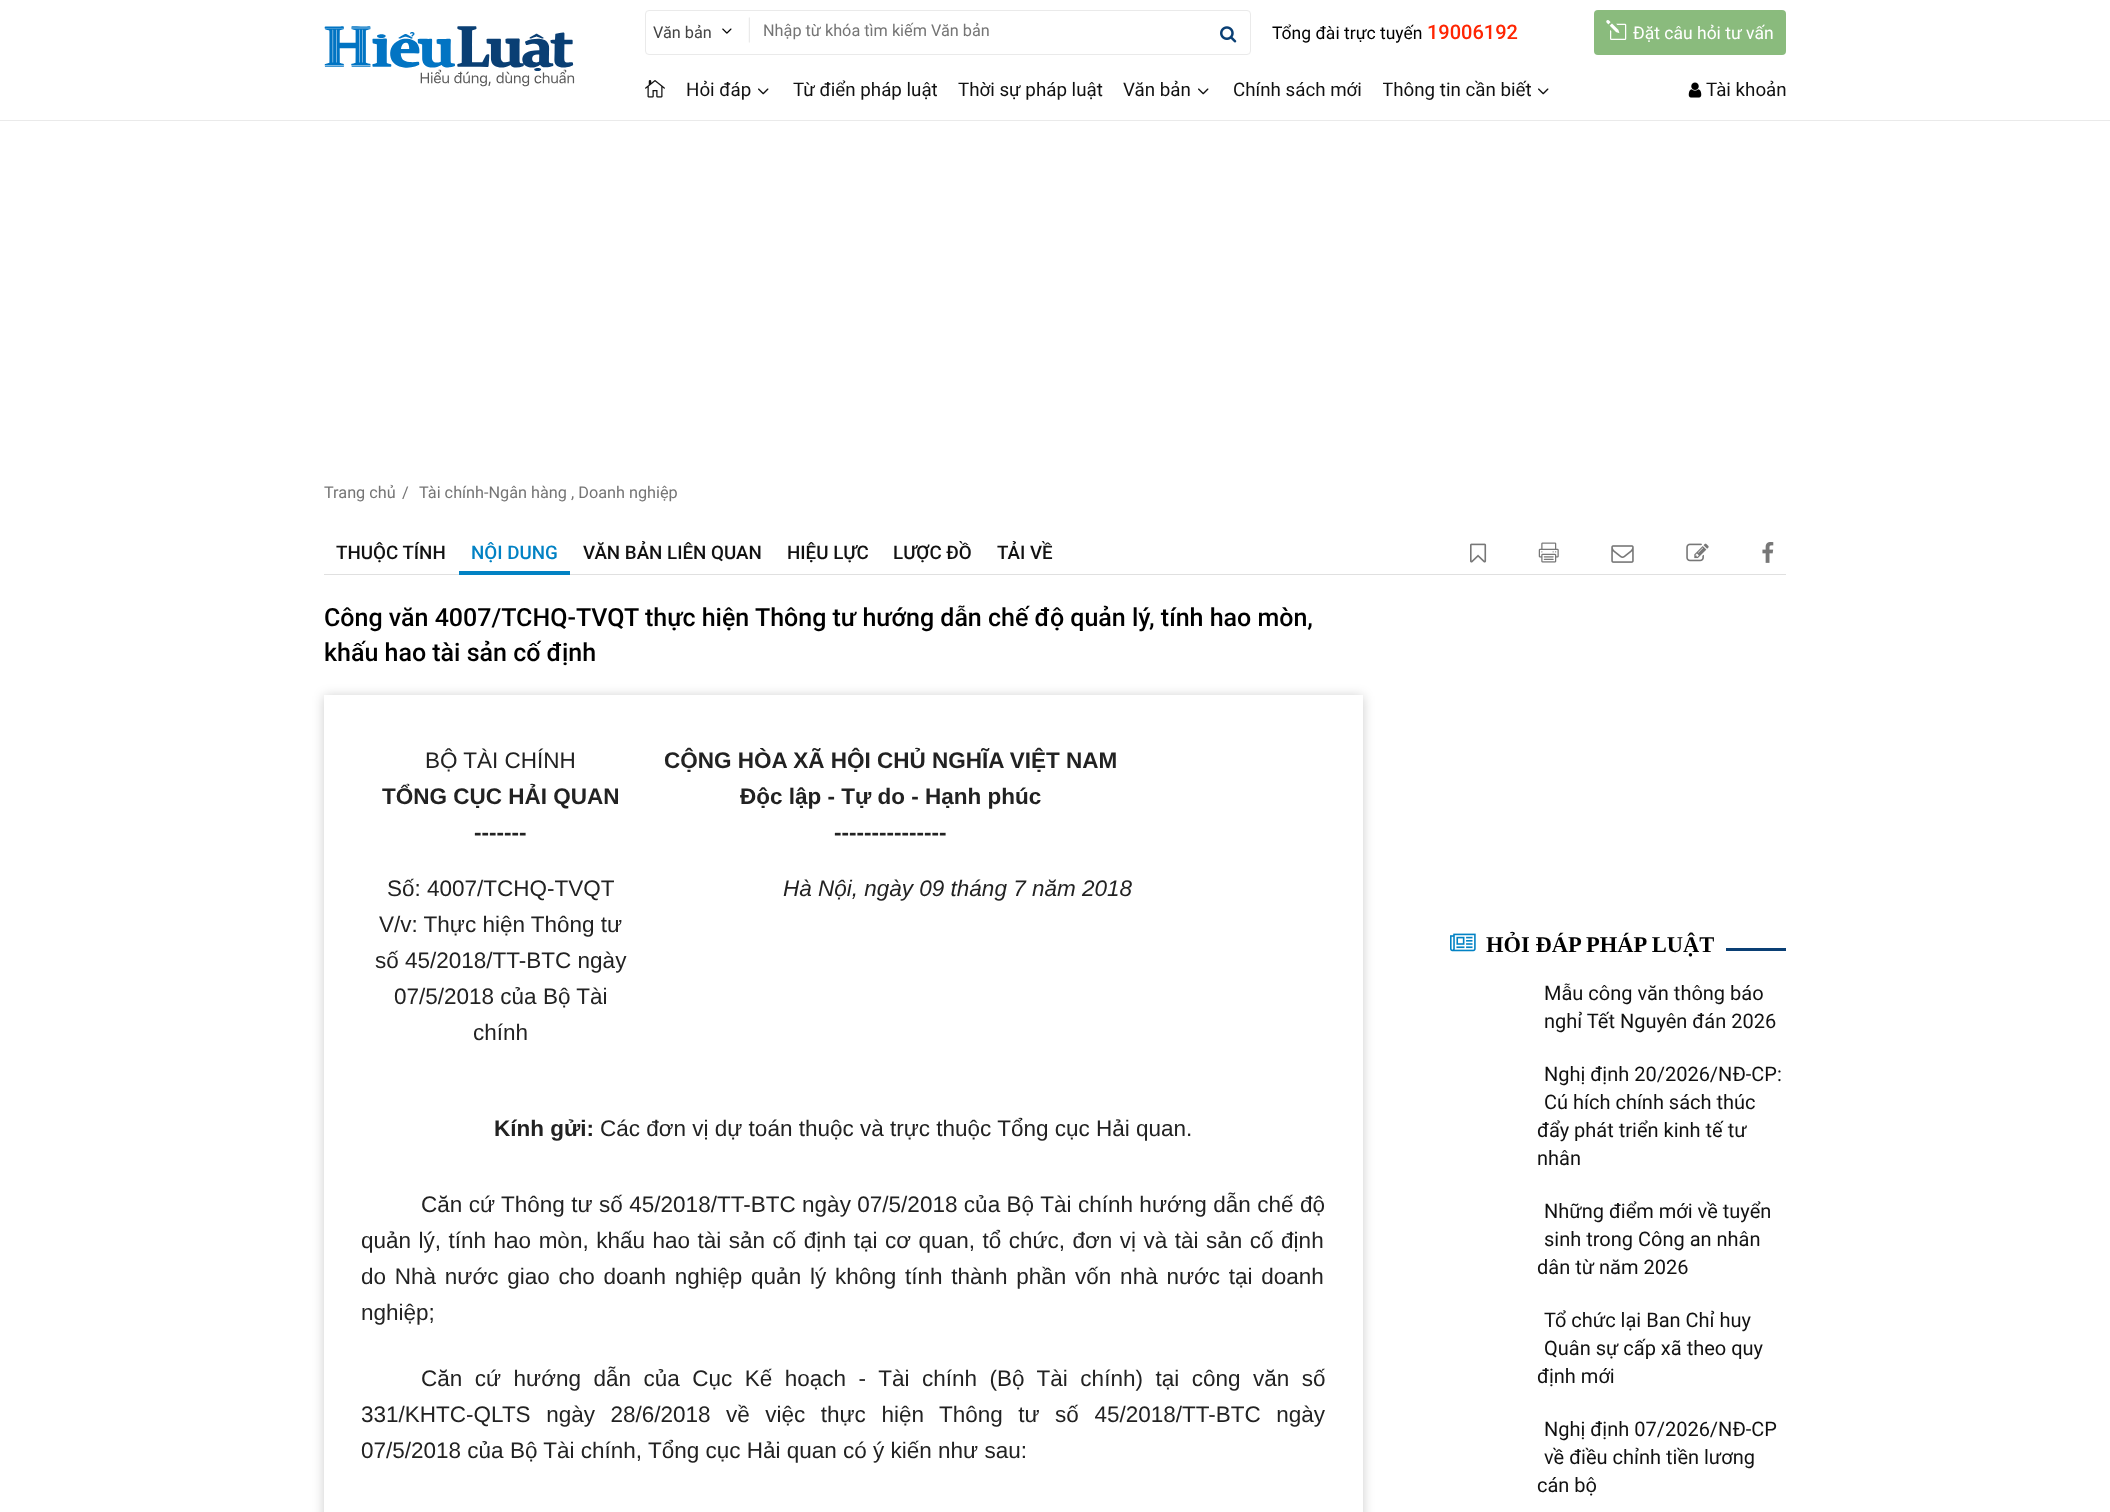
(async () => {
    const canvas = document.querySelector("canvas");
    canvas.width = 2110;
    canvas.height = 1512;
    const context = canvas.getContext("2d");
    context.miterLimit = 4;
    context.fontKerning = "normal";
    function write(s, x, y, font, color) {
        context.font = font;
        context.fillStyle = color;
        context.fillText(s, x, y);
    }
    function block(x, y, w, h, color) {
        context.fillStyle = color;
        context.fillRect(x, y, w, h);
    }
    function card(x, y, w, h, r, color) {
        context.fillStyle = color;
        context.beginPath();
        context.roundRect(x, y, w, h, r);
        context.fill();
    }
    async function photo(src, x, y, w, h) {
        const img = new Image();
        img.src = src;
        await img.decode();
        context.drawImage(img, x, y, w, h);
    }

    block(0, 0, 2110, 1512, "rgb(255, 255, 255)");
    block(0, 120, 2110, 1, "rgb(234, 234, 234)");
    await photo("media/1.png", 324, 26, 251, 61);
    context.beginPath();
    context.roundRect(645.5, 10.5, 605, 44, 3.5);
    context.strokeStyle = "rgb(234, 234, 234)";
    context.stroke();
    write("Văn bản", 653, 38, "16.25px Roboto", "rgb(68, 68, 68)");
    await photo("media/2.png", 722, 28, 10, 6);
    await photo("media/3.png", 748, 17, 2, 26);
    write("Nhập từ khóa tìm kiếm Văn bản", 763, 36, "16.25px Roboto", "rgb(117, 117, 117)");
    await photo("media/4.png", 1220, 26, 17, 17);
    write("Tổng đài trực tuyến", 1272, 39, "17.5px Roboto", "rgb(0, 0, 0)");
    write("19006192", 1427, 39, "500 20px Roboto", "rgb(255, 37, 2)");
    card(1594, 10, 192, 45, 4, "rgb(138, 187, 125)");
    await photo("media/5.png", 1606, 20, 21, 20);
    write("Đặt câu hỏi tư vấn", 1633, 39, "17.5px Roboto", "rgb(255, 255, 255)");
    await photo("media/6.png", 645, 80, 20, 18);
    write("Hỏi đáp", 686, 96, "18.75px Roboto", "rgb(17, 17, 17)");
    await photo("media/7.png", 758, 88, 11, 7);
    write("Từ điển pháp luật", 793, 96, "18.75px Roboto", "rgb(17, 17, 17)");
    write("Thời sự pháp luật", 958, 96, "18.75px Roboto", "rgb(17, 17, 17)");
    write("Văn bản", 1123, 96, "18.75px Roboto", "rgb(17, 17, 17)");
    await photo("media/7.png", 1198, 88, 11, 7);
    write("Chính sách mới", 1233, 96, "18.75px Roboto", "rgb(17, 17, 17)");
    context.save();
    context.beginPath();
    context.rect(1383, 70, 191, 40);
    context.clip();
    write("Thông tin cần biết", 1382, 96, "18.75px Roboto", "rgb(17, 17, 17)");
    context.restore();
    await photo("media/7.png", 1538, 88, 11, 7);
    await photo("media/8.png", 1688, 82, 14, 16);
    write("Tài khoản", 1706, 96, "18.75px Roboto", "rgb(17, 17, 17)");
    write("Trang chủ", 324, 498, "16.25px Roboto", "rgb(117, 117, 117)");
    write("/", 402, 498, "16.25px Roboto", "rgb(117, 117, 117)");
    write("Tài chính-Ngân hàng , Doanh nghiệp", 419, 498, "16.25px Roboto", "rgb(117, 117, 117)");
    block(324, 574, 1462, 1, "rgb(224, 224, 224)");
    write("THUỘC TÍNH", 336, 559, "500 18.75px Roboto", "rgb(17, 17, 17)");
    block(459, 571, 111, 4, "rgb(2, 130, 196)");
    write("NỘI DUNG", 471, 559, "500 18.75px Roboto", "rgb(2, 130, 196)");
    write("VĂN BẢN LIÊN QUAN", 583, 559, "500 18.75px Roboto", "rgb(17, 17, 17)");
    write("HIỆU LỰC", 787, 559, "500 18.75px Roboto", "rgb(17, 17, 17)");
    write("LƯỢC ĐỒ", 893, 559, "500 18.75px Roboto", "rgb(17, 17, 17)");
    write("TẢI VỀ", 997, 559, "500 18.75px Roboto", "rgb(17, 17, 17)");
    await photo("media/9.png", 1470, 543, 17, 20);
    await photo("media/10.png", 1538, 542, 21, 21);
    await photo("media/11.png", 1611, 545, 23, 18);
    await photo("media/12.png", 1686, 543, 23, 19);
    await photo("media/13.png", 1762, 542, 12, 21);
    write("Công văn 4007/TCHQ-TVQT thực hiện Thông tư hướng dẫn chế độ quản lý, tính hao mòn,", 324, 626, "500 25px Roboto", "rgb(0, 0, 0)");
    write("khấu hao tài sản cố định", 324, 661, "500 25px Roboto", "rgb(0, 0, 0)");
    context.save();
    context.beginPath();
    context.moveTo(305, 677);
    context.lineTo(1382, 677);
    context.lineTo(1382, 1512);
    context.lineTo(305, 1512);
    context.closePath();
    context.moveTo(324, 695);
    context.lineTo(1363, 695);
    context.lineTo(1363, 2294);
    context.lineTo(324, 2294);
    context.closePath();
    context.clip("evenodd");
    context.fillStyle = "rgba(0, 0, 0, 0.2)";
    context.filter = "blur(6px)";
    context.beginPath();
    context.rect(324, 696, 1039, 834);
    context.fill();
    context.filter = "none";
    context.restore();
    write("BỘ TÀI CHÍNH", 425, 768, "22.5px Liberation Sans", "rgb(34, 34, 34)");
    write("TỔNG CỤC HẢI QUAN", 382, 804, "bold 22.5px Liberation Sans", "rgb(34, 34, 34)");
    write("-------", 474, 840, "bold 22.5px Liberation Sans", "rgb(34, 34, 34)");
    write("Số: 4007/TCHQ-TVQT", 387, 896, "22.5px Liberation Sans", "rgb(34, 34, 34)");
    write("V/v: Thực hiện Thông tư", 379, 932, "22.5px Liberation Sans", "rgb(34, 34, 34)");
    write("số 45/2018/TT-BTC ngày", 375, 968, "22.5px Liberation Sans", "rgb(34, 34, 34)");
    write("07/5/2018 của Bộ Tài", 394, 1004, "22.5px Liberation Sans", "rgb(34, 34, 34)");
    write("chính", 473, 1040, "22.5px Liberation Sans", "rgb(34, 34, 34)");
    write("CỘNG HÒA XÃ HỘI CHỦ NGHĨA VIỆT NAM", 664, 768, "bold 22.5px Liberation Sans", "rgb(34, 34, 34)");
    write("Độc lập - Tự do - Hạnh phúc", 740, 804, "bold 22.5px Liberation Sans", "rgb(34, 34, 34)");
    write("---------------", 834, 840, "bold 22.5px Liberation Sans", "rgb(34, 34, 34)");
    write("Hà Nội, ngày 09 tháng 7 năm 2018", 783, 896, "italic 22.5px Liberation Sans", "rgb(34, 34, 34)");
    write("Kính gửi:", 494, 1136, "bold 22.5px Liberation Sans", "rgb(34, 34, 34)");
    write("Các đơn vị dự toán thuộc và trực thuộc Tổng cục Hải quan.", 600, 1136, "22.5px Liberation Sans", "rgb(34, 34, 34)");
    context.wordSpacing = "0.2px";
    write("Căn cứ Thông tư số 45/2018/TT-BTC ngày 07/5/2018 của Bộ Tài chính hướng dẫn chế độ", 421, 1212, "22.5px Liberation Sans", "rgb(34, 34, 34)");
    context.wordSpacing = "1.25px";
    write("quản lý, tính hao mòn, khấu hao tài sản cố định tại cơ quan, tổ chức, đơn vị và tài sản cố định", 361, 1248, "22.5px Liberation Sans", "rgb(34, 34, 34)");
    context.wordSpacing = "2.5px";
    write("do Nhà nước giao cho doanh nghiệp quản lý không tính thành phần vốn nhà nước tại doanh", 361, 1284, "22.5px Liberation Sans", "rgb(34, 34, 34)");
    context.wordSpacing = "0px";
    write("nghiệp;", 361, 1320, "22.5px Liberation Sans", "rgb(34, 34, 34)");
    context.wordSpacing = "6.25px";
    write("Căn cứ hướng dẫn của Cục Kế hoạch - Tài chính (Bộ Tài chính) tại công văn số", 421, 1386, "22.5px Liberation Sans", "rgb(34, 34, 34)");
    context.wordSpacing = "9.25px";
    write("331/KHTC-QLTS ngày 28/6/2018 về việc thực hiện Thông tư số 45/2018/TT-BTC ngày", 361, 1422, "22.5px Liberation Sans", "rgb(34, 34, 34)");
    context.wordSpacing = "0px";
    write("07/5/2018 của Bộ Tài chính, Tổng cục Hải quan có ý kiến như sau:", 361, 1458, "22.5px Liberation Sans", "rgb(34, 34, 34)");
    block(1726, 948, 60, 3, "rgb(10, 63, 116)");
    await photo("media/14.png", 1450, 933, 26, 19);
    write("HỎI ĐÁP PHÁP LUẬT", 1486, 952, "bold 22.5px Liberation Serif", "rgb(0, 0, 0)");
    write("Mẫu công văn thông báo", 1544, 1000, "20px Roboto", "rgb(17, 17, 17)");
    write("nghỉ Tết Nguyên đán 2026", 1544, 1028, "20px Roboto", "rgb(17, 17, 17)");
    write("Nghị định 20/2026/NĐ-CP:", 1544, 1081, "20px Roboto", "rgb(17, 17, 17)");
    write("Cú hích chính sách thúc", 1544, 1109, "20px Roboto", "rgb(17, 17, 17)");
    write("đẩy phát triển kinh tế tư", 1537, 1137, "20px Roboto", "rgb(17, 17, 17)");
    write("nhân", 1537, 1165, "20px Roboto", "rgb(17, 17, 17)");
    write("Những điểm mới về tuyển", 1544, 1218, "20px Roboto", "rgb(17, 17, 17)");
    write("sinh trong Công an nhân", 1544, 1246, "20px Roboto", "rgb(17, 17, 17)");
    write("dân từ năm 2026", 1537, 1274, "20px Roboto", "rgb(17, 17, 17)");
    write("Tổ chức lại Ban Chỉ huy", 1544, 1327, "20px Roboto", "rgb(17, 17, 17)");
    write("Quân sự cấp xã theo quy", 1544, 1355, "20px Roboto", "rgb(17, 17, 17)");
    write("định mới", 1537, 1383, "20px Roboto", "rgb(17, 17, 17)");
    write("Nghị định 07/2026/NĐ-CP", 1544, 1436, "20px Roboto", "rgb(17, 17, 17)");
    write("về điều chỉnh tiền lương", 1544, 1464, "20px Roboto", "rgb(17, 17, 17)");
    write("cán bộ", 1537, 1492, "20px Roboto", "rgb(17, 17, 17)");
})();
